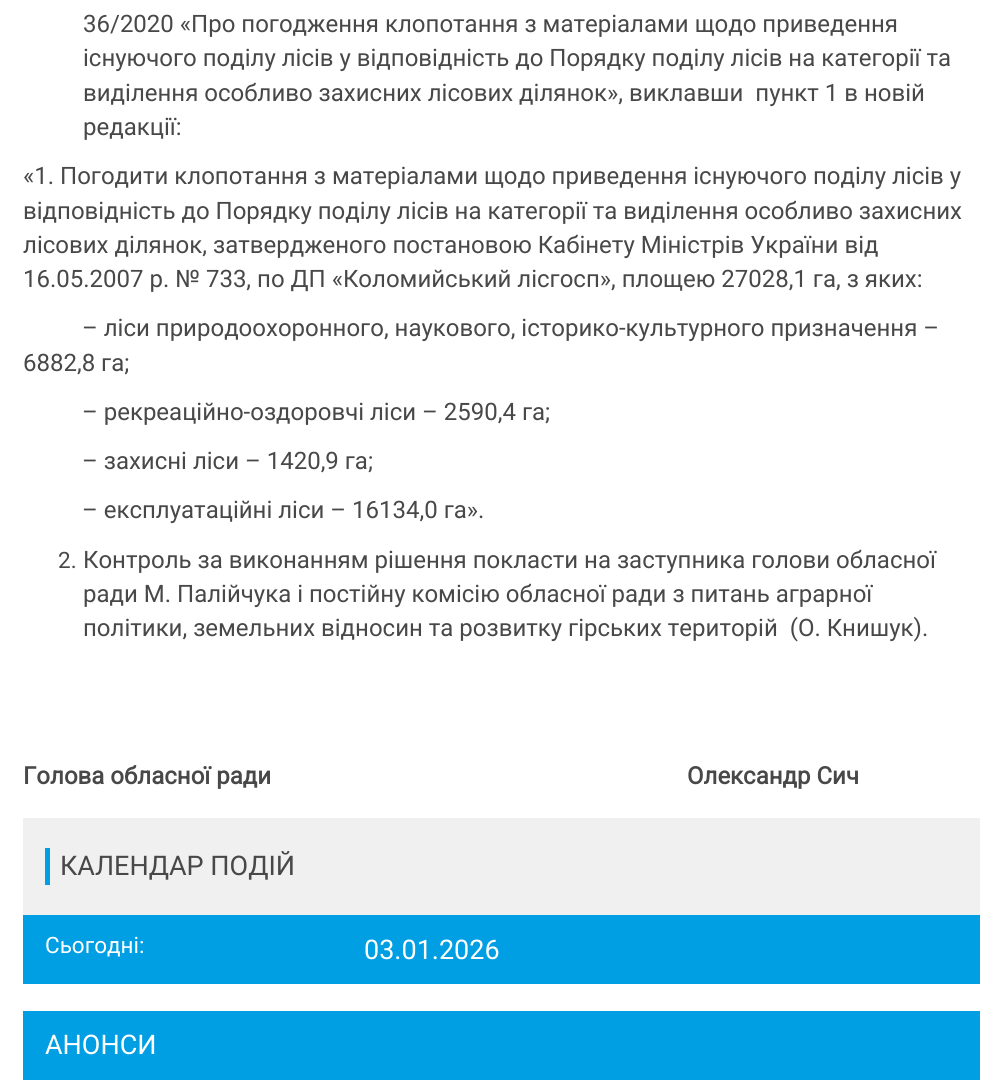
import math
import cairo

surface = cairo.ImageSurface(cairo.FORMAT_RGB24, 1002, 1088)
c = cairo.Context(surface)
options = cairo.FontOptions()
options.set_hint_metrics(cairo.HINT_METRICS_OFF)
options.set_hint_style(cairo.HINT_STYLE_NONE)
c.set_font_options(options)
c.set_miter_limit(4)
def C(code):
 c.set_source_rgb(*(v / 255 for v in bytes.fromhex(code[-6:])))
def F(family, size, italic, bold):
 c.select_font_face(family, cairo.FONT_SLANT_ITALIC if italic else cairo.FONT_SLANT_NORMAL, cairo.FONT_WEIGHT_BOLD if bold else cairo.FONT_WEIGHT_NORMAL)
 c.set_font_size(size)
def T(x, y, s):
 c.move_to(x, y)
 c.show_text(s)
def R(x, y, w, h):
 c.rectangle(x, y, w, h)
 c.fill()
C('ffffff')
c.paint()
F('Roboto',24,0,0)
C('494848')
T(83,32,'36/2020 «Про погодження клопотання з матеріалами щодо приведення')
T(83,66,'існуючого поділу лісів у відповідність до Порядку поділу лісів на категорії та')
T(83,101,'виділення особливо захисних лісових ділянок», виклавши  пункт 1 в новій')
T(83,135,'редакції:')
T(23,184,'«1. Погодити клопотання з матеріалами щодо приведення існуючого поділу лісів у')
T(23,219,'відповідність до Порядку поділу лісів на категорії та виділення особливо захисних')
T(23,253,'лісових ділянок, затвердженого постановою Кабінету Міністрів України від')
T(23,287,'16.05.2007 р. № 733, по ДП «Коломийський лісгосп», площею 27028,1 га, з яких:')
T(82,336,'– ліси природоохоронного, наукового, історико-культурного призначення –')
T(23,371,'6882,8 га;')
T(82,420,'– рекреаційно-оздоровчі ліси – 2590,4 га;')
T(82,469,'– захисні ліси – 1420,9 га;')
T(82,518,'– експлуатаційні ліси – 16134,0 га».')
F('Roboto',22.5,0,0)
T(58,568,'2.')
F('Roboto',24,0,0)
T(83,568,'Контроль за виконанням рішення покласти на заступника голови обласної')
T(83,602,'ради М. Палійчука і постійну комісію обласної ради з питань аграрної')
T(83,636,'політики, земельних відносин та розвитку гірських територій  (О. Книшук).')
F('Roboto',24,0,1)
T(23,784,'Голова обласної ради')
T(687,784,'Олександр Сич')
C('f0f0f0')
R(23,818,957,97)
C('009fe3')
R(45,848,5,37)
F('Roboto',27,0,0)
C('494848')
T(60,875,'КАЛЕНДАР ПОДІЙ')
C('009fe3')
R(23,915,957,69)
F('Roboto',22.5,0,0)
C('ffffff')
T(45,953,'Сьогодні:')
F('Roboto',27,0,0)
T(364,959,'03.01.2026')
C('009fe3')
R(23,1011,957,69)
C('ffffff')
T(45,1054,'АНОНСИ')
surface.write_to_png('o.png')
